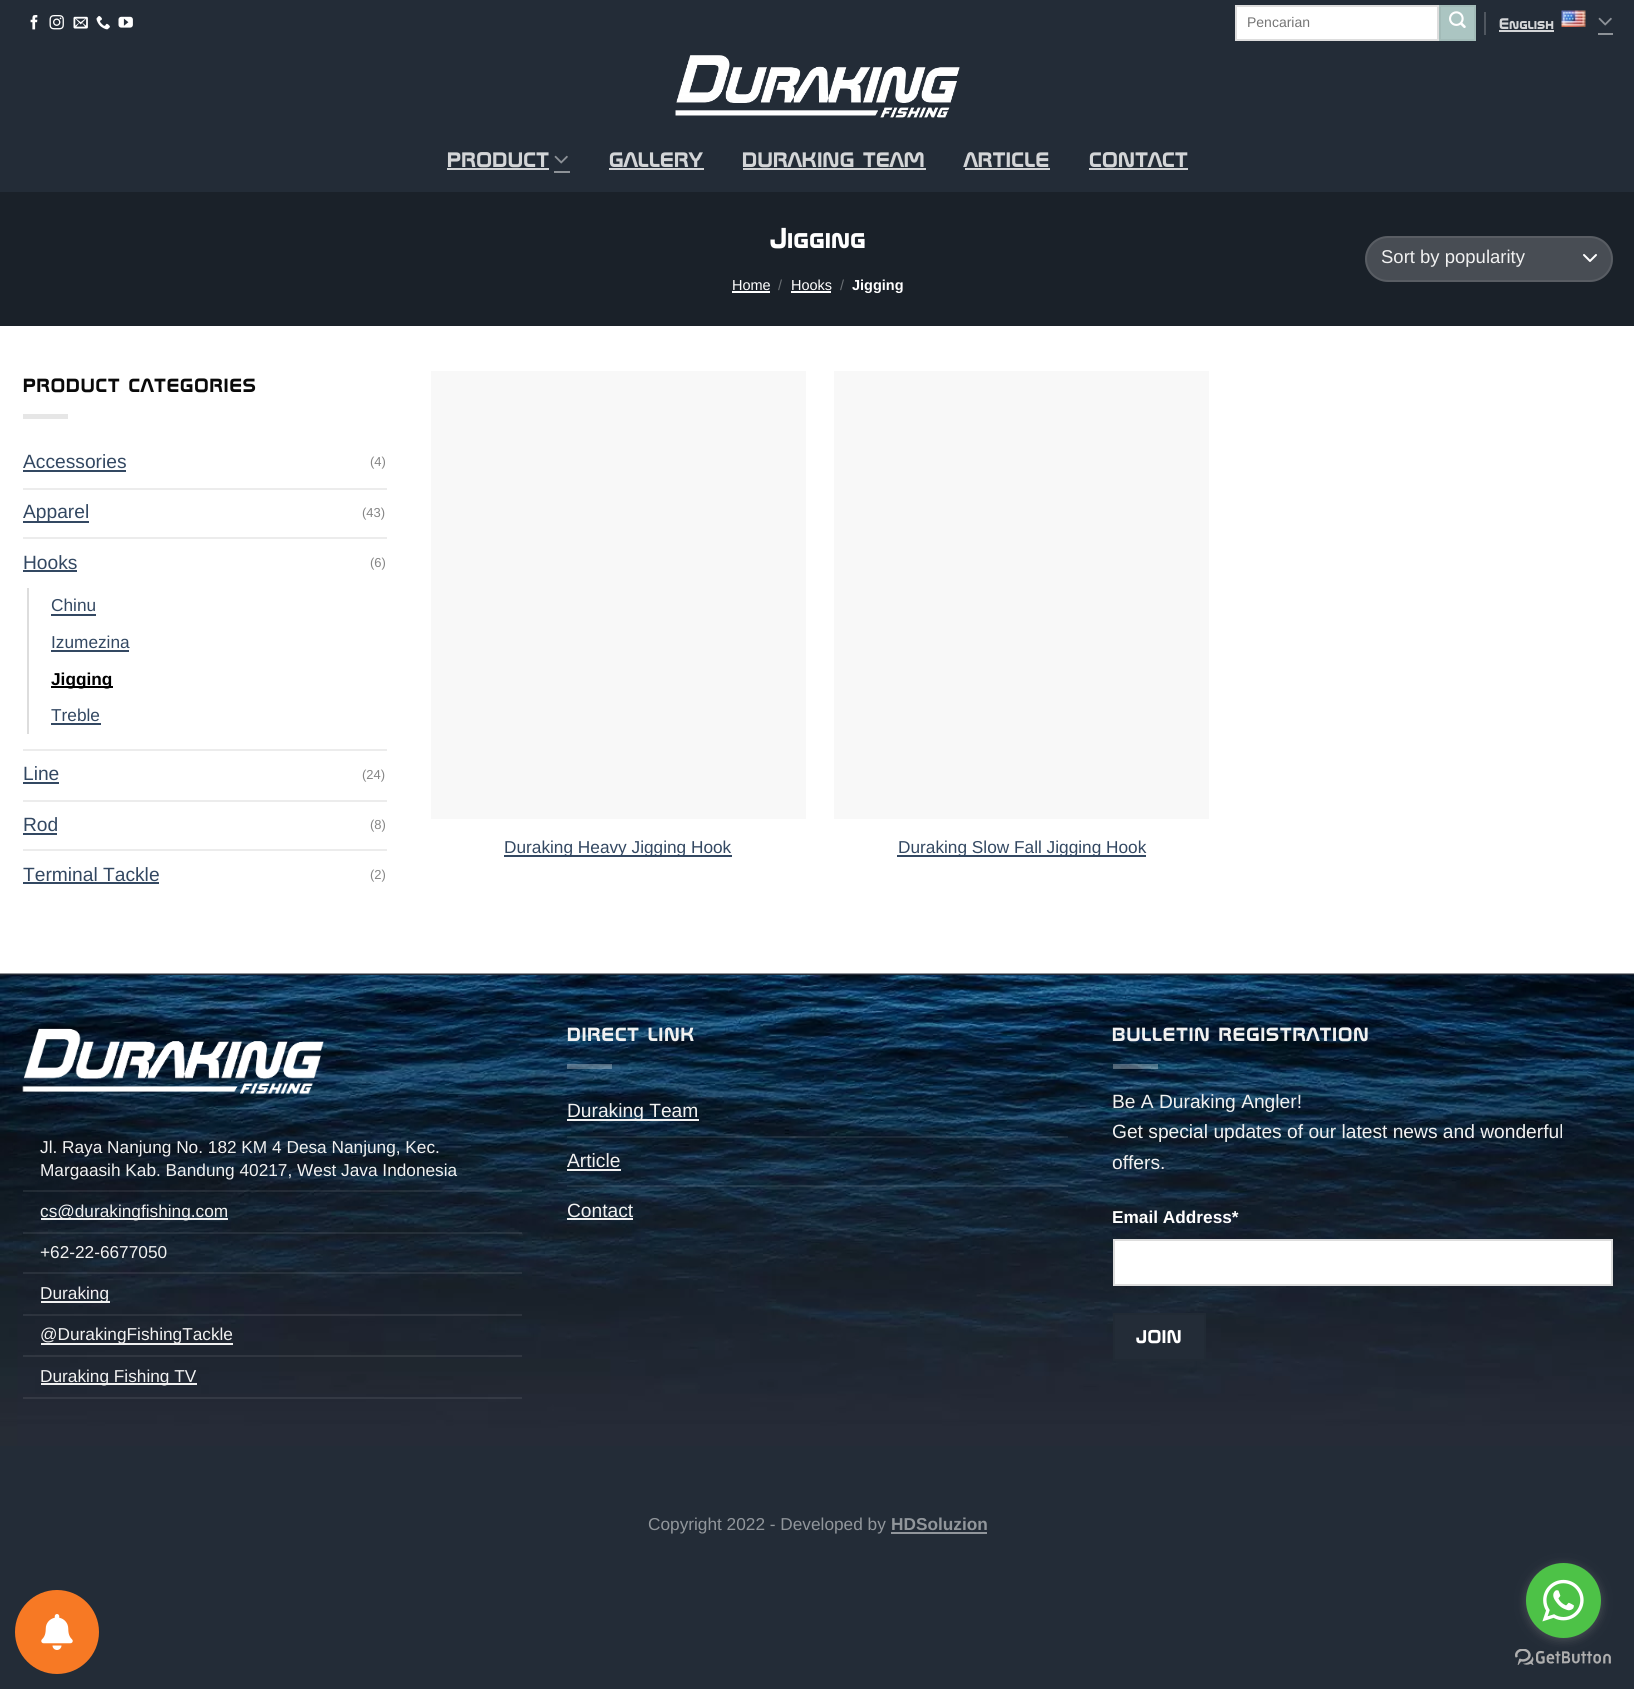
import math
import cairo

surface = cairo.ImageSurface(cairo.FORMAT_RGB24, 1634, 1689)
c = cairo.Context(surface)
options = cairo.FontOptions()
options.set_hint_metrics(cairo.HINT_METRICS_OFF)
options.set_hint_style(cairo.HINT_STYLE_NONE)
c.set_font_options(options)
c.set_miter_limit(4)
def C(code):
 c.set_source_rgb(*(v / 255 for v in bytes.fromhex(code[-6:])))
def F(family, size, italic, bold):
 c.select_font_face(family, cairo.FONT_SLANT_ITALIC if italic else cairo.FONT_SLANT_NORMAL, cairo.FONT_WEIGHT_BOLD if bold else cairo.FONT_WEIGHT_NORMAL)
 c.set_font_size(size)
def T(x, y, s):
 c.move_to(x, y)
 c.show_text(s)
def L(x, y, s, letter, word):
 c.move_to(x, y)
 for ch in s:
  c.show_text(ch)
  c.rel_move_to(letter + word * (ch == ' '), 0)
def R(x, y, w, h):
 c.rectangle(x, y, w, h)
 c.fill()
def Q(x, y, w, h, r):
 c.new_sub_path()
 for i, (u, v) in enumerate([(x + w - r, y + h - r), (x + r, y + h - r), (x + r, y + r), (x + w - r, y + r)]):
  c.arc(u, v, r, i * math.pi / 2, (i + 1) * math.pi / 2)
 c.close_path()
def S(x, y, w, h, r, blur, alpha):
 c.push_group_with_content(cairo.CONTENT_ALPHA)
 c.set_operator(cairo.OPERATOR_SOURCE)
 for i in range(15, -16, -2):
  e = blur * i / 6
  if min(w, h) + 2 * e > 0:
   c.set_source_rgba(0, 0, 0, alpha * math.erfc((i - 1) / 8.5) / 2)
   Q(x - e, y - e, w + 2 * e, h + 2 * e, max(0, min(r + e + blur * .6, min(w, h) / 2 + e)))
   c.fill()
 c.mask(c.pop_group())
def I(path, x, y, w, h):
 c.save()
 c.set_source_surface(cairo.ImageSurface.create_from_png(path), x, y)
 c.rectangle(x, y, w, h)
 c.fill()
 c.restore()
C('232c37')
c.paint()
C('ffffff')
R(0,326,1634,648)
I('1.png',30,15,8,15)
I('2.png',49,15,15,15)
I('3.png',73,16,15,13)
I('4.png',96,16,14,14)
I('5.png',118,16,15,12)
c.rectangle(1236,6,202,34)
c.fill_preserve()
C('dddddd')
c.stroke()
F('Liberation Sans',14,0,0)
C('757575')
T(1247,27,'Pencarian')
C('abc5c2')
c.rectangle(1440,6,35,34)
c.fill_preserve()
C('a2bbb8')
c.stroke()
I('6.png',1449,11,17,17)
C('4f565f')
R(1484,12,2,23)
F('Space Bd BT',15.5,0,1)
C('d3d5d7')
T(1499,29,'English')
R(1499,30,55,2)
I('7.png',1561,10,25,17)
I('8.png',1598,17,14,9)
C('8d9297')
R(1598,33,15,2)
I('9.png',675,55,285,63)
F('Space Bd BT',21.1,0,1)
C('d3d5d7')
L(447,167,'PRODUCT',.4,0)
R(447,168,102,2)
I('8.png',554,155,14,9)
C('8d9297')
R(554,171,16,2)
C('d3d5d7')
L(609,167,'GALLERY',.4,0)
R(609,168,95,2)
L(742,167,'DURAKING TEAM',.4,0)
R(743,168,183,2)
L(964,167,'ARTICLE',.4,0)
R(965,168,85,2)
L(1089,167,'CONTACT',.4,0)
R(1089,168,99,2)
C('1a2129')
R(0,192,1634,134)
F('Space Bd BT',29,0,1)
C('ffffff')
T(770,248,'Jigging')
F('Liberation Sans',14.5,0,0)
T(732,290,'Home')
R(732,291,38,2)
C('6a6f74')
T(778,290,'/')
C('ffffff')
T(791,290,'Hooks')
R(791,291,40,2)
C('6a6f74')
T(840,290,'/')
F('Liberation Sans',14.5,0,1)
C('ffffff')
T(852,290,'Jigging')
C('484d54')
Q(1365,236,248,46,23)
c.fill()
c.new_path()
c.move_to(1584,255)
c.line_to(1590,261)
c.line_to(1596,255)
C('ffffff')
c.set_line_cap(cairo.LINE_CAP_ROUND)
c.set_line_join(cairo.LINE_JOIN_ROUND)
c.stroke()
Q(1366,237,246,44,22)
c.set_source_rgba(1,1,1,0.09)
c.set_line_cap(cairo.LINE_CAP_BUTT)
c.set_line_join(cairo.LINE_JOIN_MITER)
c.stroke()
F('Liberation Sans',18.5,0,0)
C('f1f1f1')
T(1381,263,'Sort by popularity')
F('Space Bd BT',19.2,0,1)
C('0a0a0a')
L(23,392,'PRODUCT CATEGORIES',1,0)
C('e6e6e6')
R(23,414,45,5)
F('Liberation Sans',19.2,0,0)
C('334862')
T(23,468,'Accessories')
R(23,470,103,2)
F('Liberation Sans',13,0,0)
C('858585')
T(370,466,'(4)')
C('ececec')
R(23,488,364,2)
C('334862')
R(23,521,66,2)
F('Liberation Sans',19.2,0,0)
T(23,518,'Apparel')
F('Liberation Sans',13,0,0)
C('858585')
T(362,517,'(43)')
C('ececec')
R(23,537,364,2)
F('Liberation Sans',19.2,0,0)
C('334862')
T(23,569,'Hooks')
R(23,570,54,2)
F('Liberation Sans',13,0,0)
C('858585')
T(370,567,'(6)')
C('dddddd')
R(27,588,2,146)
F('Liberation Sans',17.25,0,0)
C('334862')
T(51,611,'Chinu')
R(51,614,45,2)
T(51,648,'Izumezina')
R(51,650,78,2)
C('000000')
R(51,686,62,2)
F('Liberation Sans',17.25,0,1)
T(51,685,'Jigging')
F('Liberation Sans',17.25,0,0)
C('334862')
T(51,721,'Treble')
R(51,723,50,2)
C('ececec')
R(23,749,364,2)
F('Liberation Sans',19.2,0,0)
C('334862')
T(23,780,'Line')
R(23,782,36,2)
F('Liberation Sans',13,0,0)
C('858585')
T(362,779,'(24)')
C('ececec')
R(23,800,364,2)
F('Liberation Sans',19.2,0,0)
C('334862')
T(23,831,'Rod')
R(23,833,34,2)
F('Liberation Sans',13,0,0)
C('858585')
T(370,829,'(8)')
C('ececec')
R(23,849,364,2)
F('Liberation Sans',19.2,0,0)
C('334862')
T(23,881,'Terminal Tackle')
R(23,882,136,2)
F('Liberation Sans',13,0,0)
C('858585')
T(370,879,'(2)')
C('f8f8f8')
R(431,371,375,448)
C('334862')
R(504,855,228,2)
F('Liberation Sans',17.25,0,0)
T(504,853,'Duraking Heavy Jigging Hook')
C('f8f8f8')
R(834,371,375,448)
C('334862')
R(897,855,249,2)
T(898,853,'Duraking Slow Fall Jigging Hook')
I('10.png',0,973,1634,473)
c.set_source_rgba(0,0,0,0.05)
R(0,974,1634,2)
I('11.png',22,1028,302,66)
c.set_source_rgba(1,1,1,0.08)
R(32,1190,490,2)
C('f1f1f1')
T(40,1153,'Jl. Raya Nanjung No. 182 KM 4 Desa Nanjung, Kec.')
T(40,1176,'Margaasih Kab. Bandung 40217, West Java Indonesia')
C('212b34')
R(23,1190,9,2)
c.set_source_rgba(1,1,1,0.08)
R(32,1232,490,2)
C('f1f1f1')
R(41,1218,187,2)
T(40,1217,'cs@durakingfishing.com')
c.set_source_rgba(1,1,1,0.08)
R(23,1232,9,2)
R(32,1272,490,2)
C('f1f1f1')
T(40,1258,'+62-22-6677050')
C('2a313c')
R(23,1272,9,2)
c.set_source_rgba(1,1,1,0.08)
R(32,1314,490,2)
C('f1f1f1')
R(41,1301,69,2)
T(40,1299,'Duraking')
C('2d343f')
R(23,1314,9,2)
c.set_source_rgba(1,1,1,0.08)
R(32,1355,490,2)
C('f1f1f1')
R(41,1343,192,2)
T(40,1340,'@DurakingFishingTackle')
C('303741')
R(23,1355,9,2)
c.set_source_rgba(1,1,1,0.08)
R(32,1397,490,2)
C('f1f1f1')
R(41,1383,156,2)
T(40,1382,'Duraking Fishing TV')
C('353944')
R(23,1397,9,2)
F('Space Bd BT',19.2,0,1)
C('f1f1f1')
L(567,1041,'DIRECT LINK',1,0)
c.set_source_rgba(1,1,1,0.3)
R(567,1064,45,5)
C('f1f1f1')
R(567,1119,132,2)
F('Liberation Sans',19.2,0,0)
T(567,1117,'Duraking Team')
c.set_source_rgba(1,1,1,0.08)
R(567,1136,501,2)
C('f1f1f1')
T(567,1167,'Article')
R(567,1169,54,2)
c.set_source_rgba(1,1,1,0.08)
R(567,1185,501,2)
C('f1f1f1')
T(567,1217,'Contact')
R(567,1218,66,2)
F('Space Bd BT',19.2,0,1)
L(1112,1041,'BULLETIN REGISTRATION',1,0)
c.set_source_rgba(1,1,1,0.3)
R(1113,1064,45,5)
F('Liberation Sans',19.2,0,0)
C('f1f1f1')
T(1112,1108,'Be A Duraking Angler!')
T(1112,1138,'Get special updates of our latest news and wonderful')
T(1112,1169,'offers.')
F('Liberation Sans',17.25,0,1)
C('ffffff')
T(1112,1223,'Email Address*')
c.rectangle(1114,1240,498,45)
c.fill_preserve()
C('dddddd')
c.stroke()
C('232c37')
c.rectangle(1114,1314,91,46)
c.fill_preserve()
C('212a34')
c.stroke()
F('Space Bd BT',18.5,0,1)
C('ffffff')
L(1136,1343,'JOIN',.5,0)
F('Liberation Sans',17.25,0,0)
C('91969b')
T(648,1530,'Copyright 2022 - Developed by')
F('Liberation Sans',17.25,0,1)
T(891,1530,'HDSoluzion')
R(891,1532,96,2)
C('f77924')
c.new_path()
c.arc(57,1632,42,0,2 * math.pi)
c.fill()
I('12.png',41,1614,32,36)
I('14.png',1515,1649,96,16)
C('888888')
S(1526,1565,75,75,37.5,5,.4)
C('4dc247')
c.arc(1563.5,1600.5,37.5,0,2 * math.pi)
c.fill()
I('13.png',1542,1579,42,43)
surface.write_to_png('o.png')
